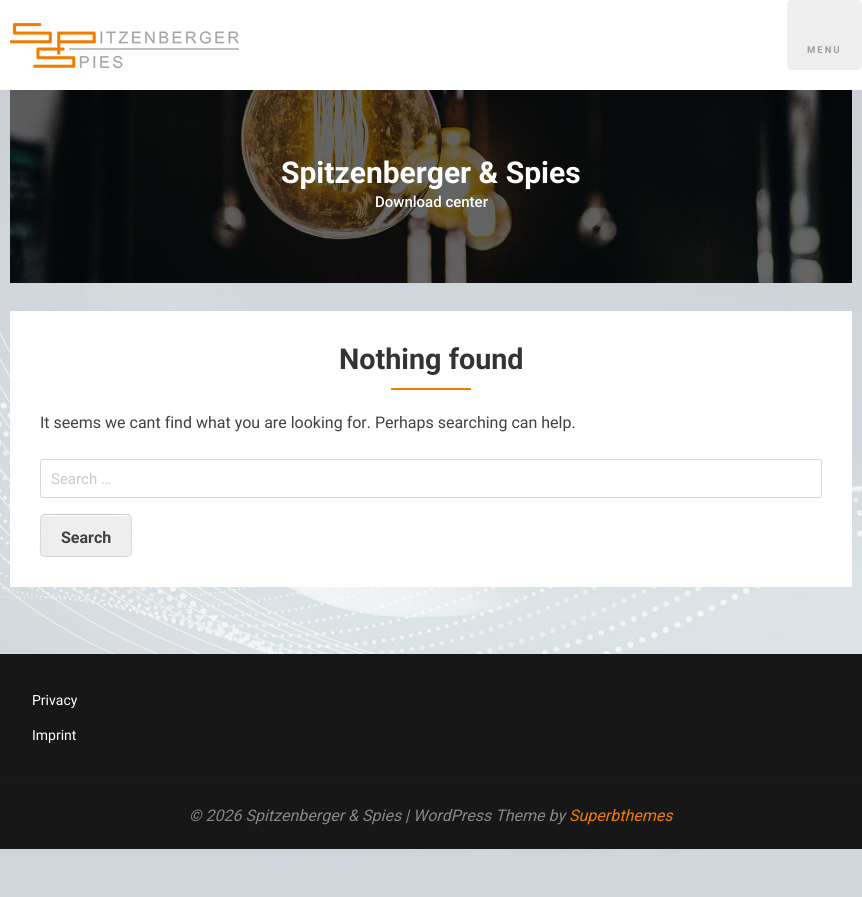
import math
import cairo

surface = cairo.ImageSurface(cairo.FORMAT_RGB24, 862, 897)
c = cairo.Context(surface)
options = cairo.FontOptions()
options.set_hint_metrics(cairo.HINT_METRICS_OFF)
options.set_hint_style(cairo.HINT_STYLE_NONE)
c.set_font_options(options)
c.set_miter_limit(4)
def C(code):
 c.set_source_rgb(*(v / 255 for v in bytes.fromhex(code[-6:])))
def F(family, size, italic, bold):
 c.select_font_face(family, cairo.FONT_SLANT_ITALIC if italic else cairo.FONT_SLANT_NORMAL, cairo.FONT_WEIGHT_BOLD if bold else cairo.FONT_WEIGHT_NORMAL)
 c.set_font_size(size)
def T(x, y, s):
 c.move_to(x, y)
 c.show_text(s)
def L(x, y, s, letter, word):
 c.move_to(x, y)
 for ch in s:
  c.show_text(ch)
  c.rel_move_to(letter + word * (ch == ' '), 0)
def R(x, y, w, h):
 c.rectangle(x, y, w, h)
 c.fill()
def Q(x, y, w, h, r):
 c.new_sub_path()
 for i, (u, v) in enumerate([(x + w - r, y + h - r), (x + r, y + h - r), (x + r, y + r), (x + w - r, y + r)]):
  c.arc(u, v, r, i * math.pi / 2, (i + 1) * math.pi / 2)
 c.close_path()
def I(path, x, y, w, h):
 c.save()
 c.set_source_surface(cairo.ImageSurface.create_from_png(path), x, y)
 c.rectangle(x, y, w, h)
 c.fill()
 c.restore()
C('ffffff')
c.paint()
I('1.png',0,90,862,807)
I('2.png',10,23,229,45)
C('eeeeee')
Q(787,0,75,70,5)
c.fill()
F('Roboto',9.5,0,1)
C('9e9e9e')
L(807,53,'MENU',2,0)
I('3.png',10,90,842,193)
F('Roboto',30,0,1)
C('ffffff')
T(281,183,'Spitzenberger & Spies')
F('Roboto Medium',15,0,0)
T(375,207,'Download center')
R(10,311,842,276)
F('Roboto',28.75,0,1)
C('333333')
T(339,369,'Nothing found')
C('ef7d00')
R(391,388,80,2)
F('Roboto',16,0,0)
C('404040')
T(40,428,'It seems we cant find what you are looking for. Perhaps searching can help.')
Q(40.5,459.5,781,38,2.5)
C('d8d8d8')
c.set_line_width(1)
c.stroke()
F('Roboto',15,0,0)
C('cacaca')
T(51,484,'Search …')
C('fbfcfc')
c.new_path()
c.move_to(45,513)
c.curve_to(42,513,40,516,40,519)
c.curve_to(40,516,42,514,45,514)
c.line_to(127,514)
c.curve_to(130,514,132,516,132,519)
c.curve_to(132,516,130,513,127,513)
c.close_path()
c.fill()
C('eeeeee')
Q(40,514,92,43,5)
c.fill()
C('ffffff')
c.new_path()
c.move_to(45,516)
c.line_to(127,516)
c.curve_to(129,516,131,518,131,520)
c.curve_to(131,512,118,515,113,515)
c.line_to(59,515)
c.curve_to(54,515,41,512,41,520)
c.curve_to(41,518,43,516,45,516)
c.close_path()
c.fill()
c.new_path()
c.move_to(42,516)
c.line_to(44.5,514.5)
c.line_to(127.5,514.5)
c.line_to(130,516)
c.set_source_rgba(0.102,0.208,0.278,0.2)
c.stroke()
c.new_path()
c.move_to(130,516)
c.curve_to(132.5,518,131.5,522,131.5,524.5)
c.line_to(131.5,535.5)
c.curve_to(131.5,558.5,135.5,556.5,113.5,556.5)
c.line_to(58.5,556.5)
c.curve_to(36.5,556.5,40.5,558.5,40.5,535.5)
c.line_to(40.5,524.5)
c.curve_to(40.5,522,39.5,518,42,516)
c.set_source_rgba(0.102,0.208,0.278,0.11)
c.stroke()
F('Roboto',16,0,1)
C('404040')
T(61,543,'Search')
C('171717')
R(0,654,862,195)
F('Roboto',14,0,0)
C('ffffff')
T(32,705,'Privacy')
T(32,740,'Imprint')
C('1b1b1b')
R(0,782,862,1)
F('Roboto',16,1,0)
C('868686')
T(189,821,'© 2026 Spitzenberger & Spies | WordPress Theme by')
C('ef7d00')
T(569,821,'Superbthemes')
surface.write_to_png('o.png')
